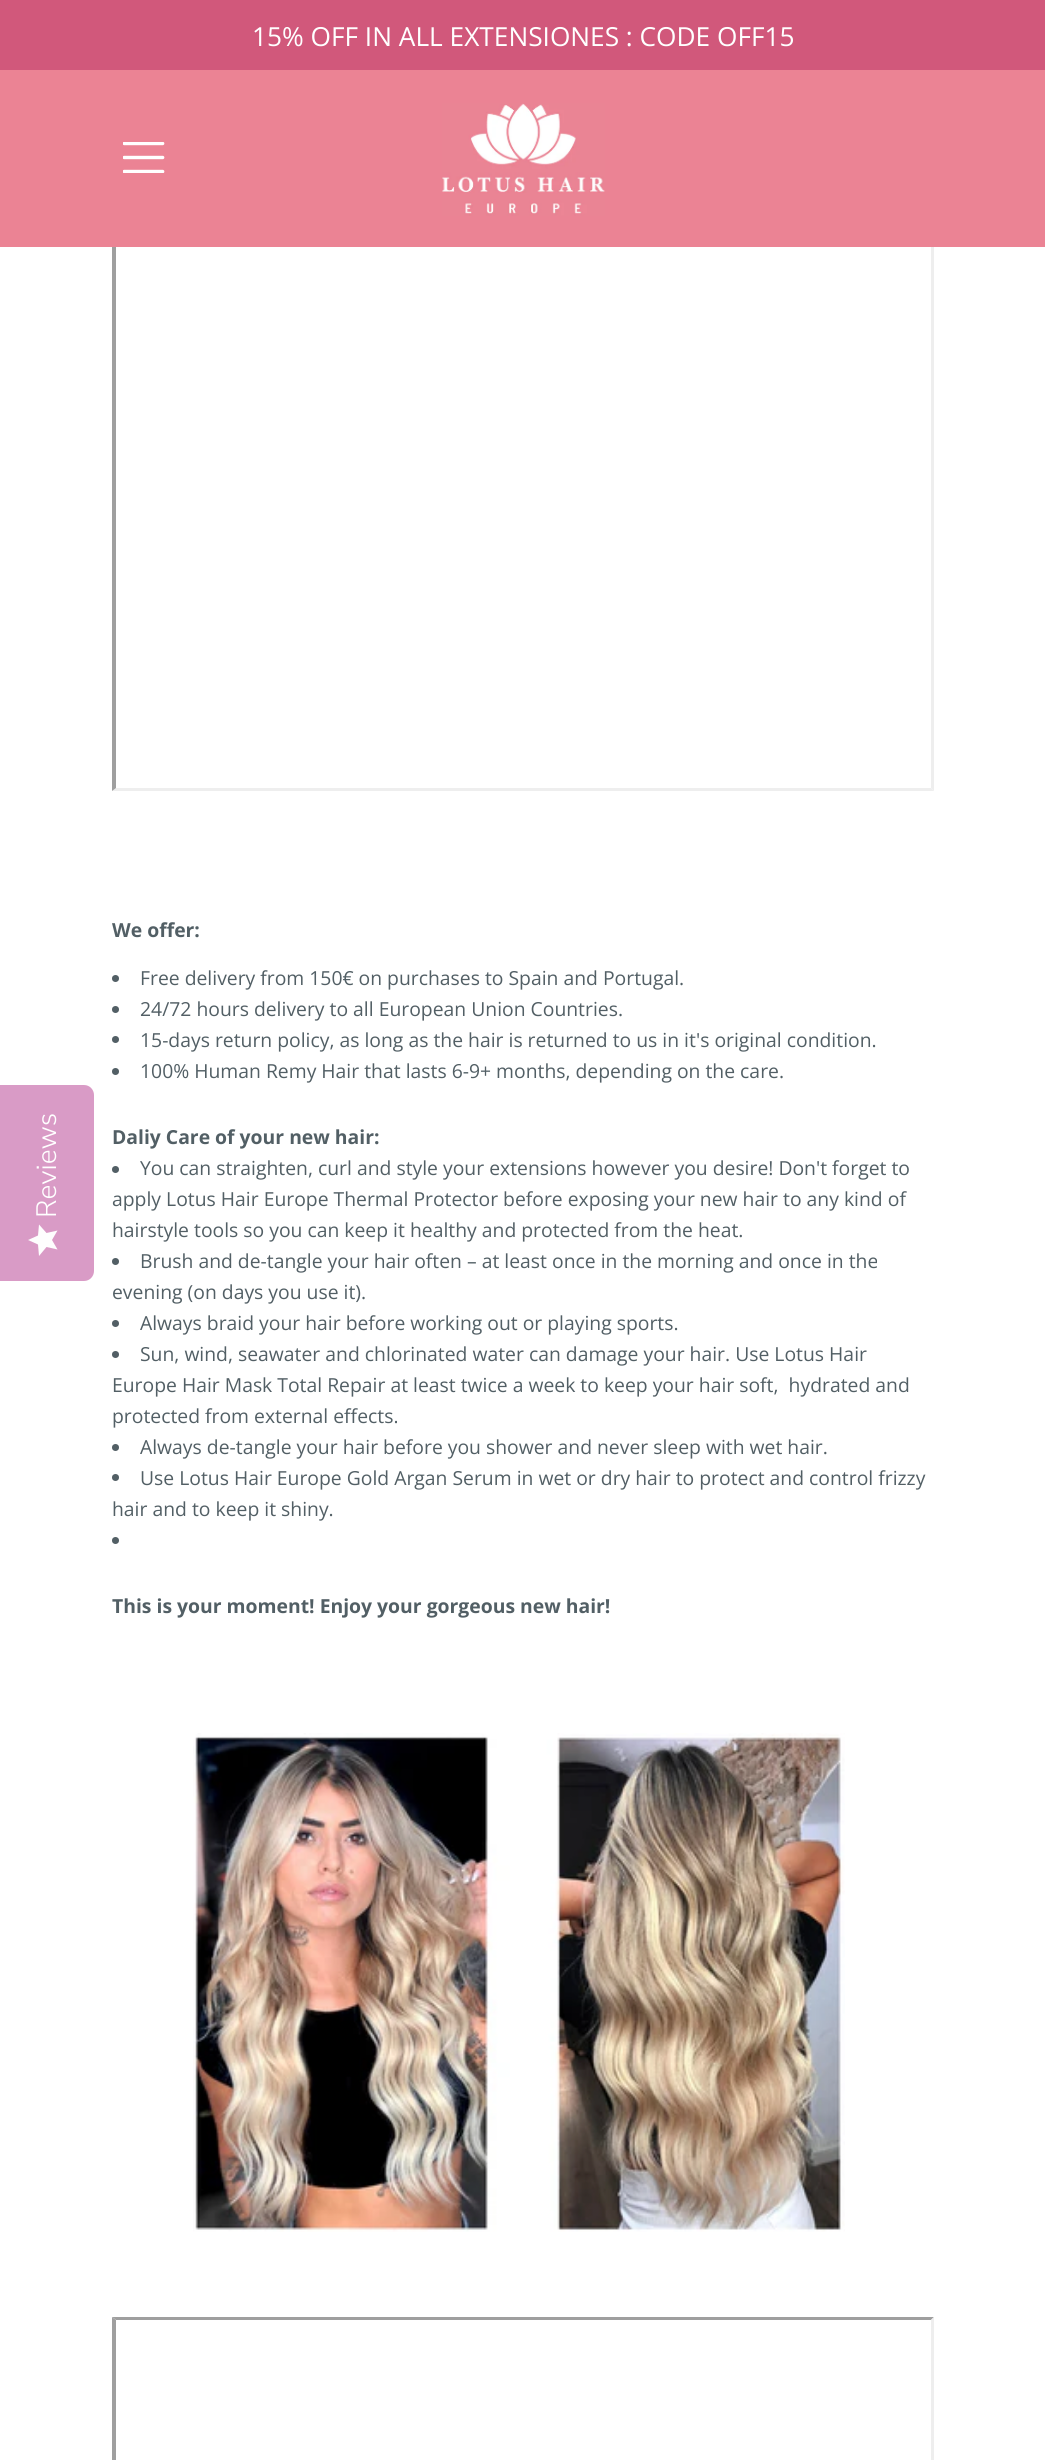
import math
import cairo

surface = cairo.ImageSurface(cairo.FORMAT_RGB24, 1045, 2460)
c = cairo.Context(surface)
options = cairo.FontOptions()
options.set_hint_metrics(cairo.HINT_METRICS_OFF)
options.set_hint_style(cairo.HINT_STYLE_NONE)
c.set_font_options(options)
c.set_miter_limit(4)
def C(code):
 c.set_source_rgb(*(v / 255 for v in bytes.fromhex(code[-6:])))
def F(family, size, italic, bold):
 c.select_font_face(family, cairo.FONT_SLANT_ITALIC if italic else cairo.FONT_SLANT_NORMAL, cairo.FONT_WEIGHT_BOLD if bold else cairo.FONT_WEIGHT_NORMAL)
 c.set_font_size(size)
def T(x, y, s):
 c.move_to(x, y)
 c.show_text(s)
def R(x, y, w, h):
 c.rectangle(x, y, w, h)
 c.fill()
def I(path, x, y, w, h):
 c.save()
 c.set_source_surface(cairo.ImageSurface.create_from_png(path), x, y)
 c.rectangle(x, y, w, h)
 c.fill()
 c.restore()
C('ffffff')
c.paint()
C('d99bc6')
c.new_path()
c.move_to(0,1281)
c.line_to(0,1085)
c.line_to(84,1085)
c.curve_to(90,1085,94,1090,94,1095)
c.line_to(94,1271)
c.curve_to(94,1276,90,1281,84,1281)
c.close_path()
c.fill()
F('Nunito Sans Light',28,0,0)
C('ffffff')
c.save()
c.translate(56,1218)
c.rotate(-90 * math.pi / 180)
T(0,0,'Reviews')
c.restore()
gradient = cairo.LinearGradient(28,1256,28,1224)
gradient.add_color_stop_rgba(1,0.996,0.996,0.996,1)
gradient.add_color_stop_rgba(1,0.941,0.941,0.941,1)
c.set_source(gradient)
c.new_path()
c.move_to(52,1240)
c.line_to(57.5,1230.5)
c.line_to(46.5,1233)
c.line_to(39,1224.5)
c.line_to(38,1235.5)
c.line_to(28,1240)
c.line_to(38,1244.5)
c.line_to(39,1256)
c.line_to(46.5,1247)
c.line_to(57.5,1249.5)
c.close_path()
c.fill()
C('d1587b')
R(0,0,1045,70)
F('Open Sans',26.25,0,0)
C('ffffff')
T(252,46,'15% OFF IN ALL EXTENSIONES : CODE OFF15')
C('eeeeee')
c.new_path()
c.move_to(934,240)
c.line_to(934,791)
c.line_to(931,788)
c.line_to(931,243)
c.close_path()
c.fill()
c.new_path()
c.move_to(934,791)
c.line_to(112,791)
c.line_to(116,788)
c.line_to(931,788)
c.close_path()
c.fill()
C('9f9f9f')
c.new_path()
c.move_to(112,791)
c.line_to(112,240)
c.line_to(116,243)
c.line_to(116,788)
c.close_path()
c.fill()
C('eb8394')
R(0,70,1045,177)
I('1.png',123,142,42,31)
I('2.png',442,103,163,113)
F('Open Sans',19.35,0,1)
C('525f65')
T(112,937,'We offer:')
c.new_path()
c.arc(115.5,978.5,3.5,0,2 * math.pi)
c.fill()
F('Open Sans',19.35,0,0)
T(140,985,'Free delivery from 150€ on purchases to Spain and Portugal.')
c.new_path()
c.arc(115.5,1009.5,3.5,0,2 * math.pi)
c.fill()
T(140,1016,'24/72 hours delivery to all European Union Countries.')
c.new_path()
c.arc(115.5,1039.5,3.5,0,2 * math.pi)
c.fill()
T(140,1047,'15-days return policy, as long as the hair is returned to us in it\'s original condition.')
c.new_path()
c.arc(115.5,1071.5,3.5,0,2 * math.pi)
c.fill()
T(140,1078,'100% Human Remy Hair that lasts 6-9+ months, depending on the care.')
F('Open Sans',19.35,0,1)
T(112,1144,'Daliy Care of your new hair:')
c.new_path()
c.arc(115.5,1169.5,3.5,0,2 * math.pi)
c.fill()
F('Open Sans',19.35,0,0)
T(140,1175,'You can straighten, curl and style your extensions however you desire! Don\'t forget to')
T(112,1206,'apply Lotus Hair Europe Thermal Protector before exposing your new hair to any kind of')
T(112,1237,'hairstyle tools so you can keep it healthy and protected from the heat.')
c.new_path()
c.arc(115.5,1261.5,3.5,0,2 * math.pi)
c.fill()
T(140,1268,'Brush and de-tangle your hair often – at least once in the morning and once in the')
T(112,1299,'evening (on days you use it).')
c.new_path()
c.arc(115.5,1323.5,3.5,0,2 * math.pi)
c.fill()
T(140,1330,'Always braid your hair before working out or playing sports.')
c.new_path()
c.arc(115.5,1354.5,3.5,0,2 * math.pi)
c.fill()
T(140,1361,'Sun, wind, seawater and chlorinated water can damage your hair. Use Lotus Hair')
T(112,1392,'Europe Hair Mask Total Repair at least twice a week to keep your hair soft,  hydrated and')
T(112,1423,'protected from external effects.')
c.new_path()
c.arc(115.5,1447.5,3.5,0,2 * math.pi)
c.fill()
T(140,1454,'Always de-tangle your hair before you shower and never sleep with wet hair.')
c.new_path()
c.arc(115.5,1477.5,3.5,0,2 * math.pi)
c.fill()
T(140,1485,'Use Lotus Hair Europe Gold Argan Serum in wet or dry hair to protect and control frizzy')
T(112,1516,'hair and to keep it shiny.')
c.new_path()
c.arc(115.5,1540.5,3.5,0,2 * math.pi)
c.fill()
F('Open Sans',19.35,0,1)
T(112,1613,'This is your moment! Enjoy your gorgeous new hair!')
I('3.png',193,1733,652,499)
C('9f9f9f')
c.new_path()
c.move_to(112,2317)
c.line_to(934,2317)
c.line_to(931,2320)
c.line_to(116,2320)
c.close_path()
c.fill()
c.new_path()
c.move_to(112,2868)
c.line_to(112,2317)
c.line_to(116,2320)
c.line_to(116,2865)
c.close_path()
c.fill()
C('eeeeee')
c.new_path()
c.move_to(934,2317)
c.line_to(934,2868)
c.line_to(931,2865)
c.line_to(931,2320)
c.close_path()
c.fill()
surface.write_to_png('o.png')
